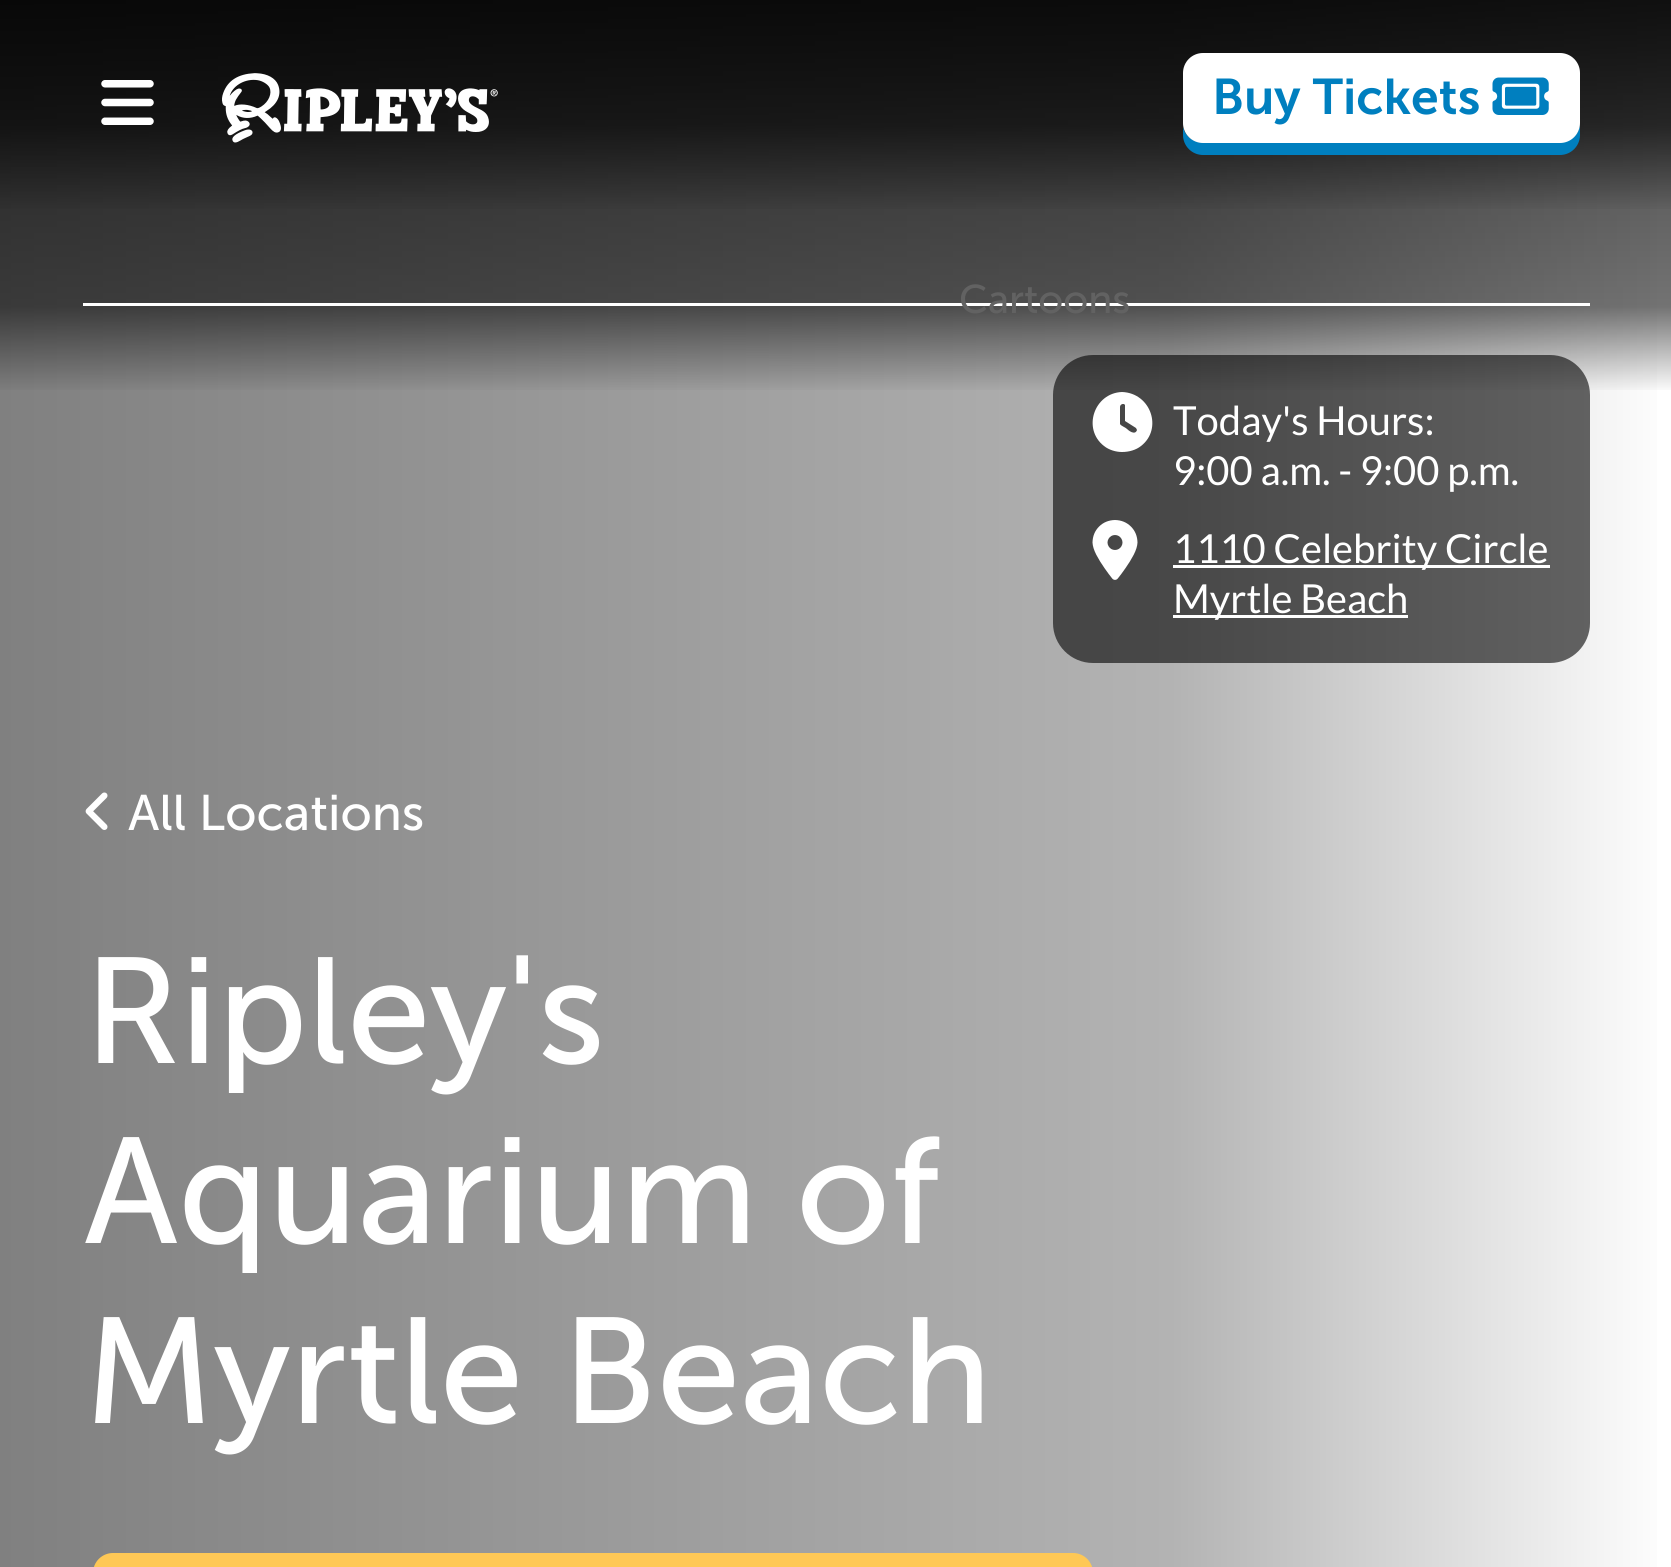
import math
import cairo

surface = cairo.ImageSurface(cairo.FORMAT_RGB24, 1671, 1567)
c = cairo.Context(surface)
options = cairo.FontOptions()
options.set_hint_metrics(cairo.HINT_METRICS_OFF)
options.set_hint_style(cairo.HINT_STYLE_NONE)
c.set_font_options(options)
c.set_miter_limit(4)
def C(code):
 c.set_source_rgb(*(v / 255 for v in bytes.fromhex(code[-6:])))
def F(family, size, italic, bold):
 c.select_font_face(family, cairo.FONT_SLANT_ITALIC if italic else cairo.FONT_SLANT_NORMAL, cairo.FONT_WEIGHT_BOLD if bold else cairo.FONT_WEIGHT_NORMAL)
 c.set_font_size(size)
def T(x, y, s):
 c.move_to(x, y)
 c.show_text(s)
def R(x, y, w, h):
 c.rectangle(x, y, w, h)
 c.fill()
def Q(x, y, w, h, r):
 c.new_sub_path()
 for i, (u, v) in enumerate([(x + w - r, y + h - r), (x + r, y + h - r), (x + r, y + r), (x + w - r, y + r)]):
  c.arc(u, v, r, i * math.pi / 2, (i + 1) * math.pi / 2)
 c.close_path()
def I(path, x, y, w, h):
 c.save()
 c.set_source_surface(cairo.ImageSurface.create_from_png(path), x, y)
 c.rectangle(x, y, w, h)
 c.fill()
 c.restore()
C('ffffff')
c.paint()
gradient = cairo.LinearGradient(0,1130,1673,1130)
gradient.add_color_stop_rgba(0,0.502,0.502,0.502,1)
gradient.add_color_stop_rgba(.7,0.702,0.702,0.702,1)
gradient.add_color_stop_rgba(1,1,1,1,1)
c.set_source(gradient)
R(0,0,1657,1567)
c.set_source_rgba(0,0,0,0.6)
Q(1053,355,537,308,40)
c.fill()
gradient = cairo.LinearGradient(836,0,836,393)
gradient.add_color_stop_rgba(0,0,0,0,.75)
gradient.add_color_stop_rgba(.78,0,0,0,.55)
gradient.add_color_stop_rgba(1,0,0,0,0)
c.set_source(gradient)
R(0,0,1671,390)
C('ffffff')
R(83,303,1507,3)
gradient = cairo.LinearGradient(836,0,836,213)
gradient.add_color_stop_rgba(0,0,0,0,.75)
gradient.add_color_stop_rgba(.59,0,0,0,.55)
gradient.add_color_stop_rgba(1,0,0,0,0)
c.set_source(gradient)
R(0,0,1671,209)
I('1.png',101,80,53,45)
I('2.png',222,73,276,70)
C('007fbf')
c.new_path()
c.move_to(1183,127)
c.line_to(1183,135)
c.curve_to(1183,146,1192,155,1203,155)
c.line_to(1560,155)
c.curve_to(1571,155,1580,146,1580,135)
c.line_to(1580,122)
c.curve_to(1580,134,1571,142,1560,142)
c.line_to(1202,142)
c.curve_to(1193,142,1185,136,1183,127)
c.close_path()
c.fill()
C('ffffff')
Q(1183,53,397,90,20)
c.fill()
F('Museo Sans SemiBold',50,0,0)
C('007fbf')
T(1212,114,'Buy Tickets')
I('3.png',1492,77,57,38)
F('Museo Sans',40,0,0)
C('626262')
T(959,313,'Cartoons')
C('ffffff')
c.new_path()
c.move_to(1122,392)
c.curve_to(1151,393,1163,429,1141,446)
c.curve_to(1136,450,1129,452,1122,452)
c.curve_to(1116,452,1109,450,1104,446)
c.curve_to(1082,429,1094,393,1122,392)
c.close_path()
c.move_to(1120,407)
c.line_to(1120,424)
c.curve_to(1121,426,1125,427,1127,429)
c.curve_to(1128,430,1135,436,1137,430)
c.line_to(1136,428)
c.line_to(1125,421)
c.line_to(1125,405)
c.curve_to(1124,403,1120,404,1120,407)
c.close_path()
c.fill()
F('Lato',40,0,0)
T(1173,435,'Today\'s Hours:')
T(1173,485,'9:00 a.m. - 9:00 p.m.')
I('4.png',1092,520,46,60)
R(1173,565,377,3)
T(1173,563,'1110 Celebrity Circle')
R(1173,615,235,3)
T(1173,613,'Myrtle Beach')
I('5.png',85,792,23,38)
F('Museo Sans',50,0,0)
T(128,830,'All Locations')
F('Museo Sans',150,0,0)
T(84,1063,'Ripley\'s')
T(84,1243,'Aquarium of')
T(84,1423,'Myrtle Beach')
C('fec856')
Q(93,1553,1000,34,20)
c.fill()
surface.write_to_png('o.png')
